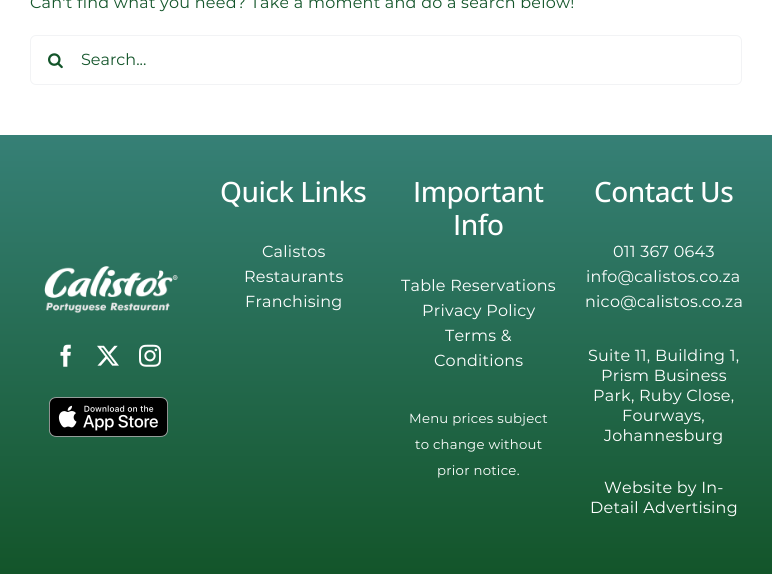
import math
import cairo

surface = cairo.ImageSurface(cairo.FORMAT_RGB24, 772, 574)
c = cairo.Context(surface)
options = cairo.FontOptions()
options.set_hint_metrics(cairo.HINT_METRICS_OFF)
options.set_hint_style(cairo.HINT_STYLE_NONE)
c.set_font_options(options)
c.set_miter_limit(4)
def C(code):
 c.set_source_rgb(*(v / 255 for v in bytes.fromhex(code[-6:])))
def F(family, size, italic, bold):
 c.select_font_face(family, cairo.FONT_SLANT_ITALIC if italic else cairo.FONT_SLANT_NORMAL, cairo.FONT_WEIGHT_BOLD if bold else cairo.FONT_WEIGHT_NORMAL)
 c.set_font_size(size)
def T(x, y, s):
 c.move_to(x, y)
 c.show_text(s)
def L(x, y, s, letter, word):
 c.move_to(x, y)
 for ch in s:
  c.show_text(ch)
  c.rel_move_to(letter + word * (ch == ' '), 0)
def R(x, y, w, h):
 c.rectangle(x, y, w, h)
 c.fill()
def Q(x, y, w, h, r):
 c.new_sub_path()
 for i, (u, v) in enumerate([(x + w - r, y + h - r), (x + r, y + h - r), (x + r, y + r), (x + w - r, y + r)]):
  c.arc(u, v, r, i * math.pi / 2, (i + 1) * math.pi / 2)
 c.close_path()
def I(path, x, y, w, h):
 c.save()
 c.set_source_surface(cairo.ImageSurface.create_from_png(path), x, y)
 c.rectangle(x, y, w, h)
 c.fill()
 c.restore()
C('ffffff')
c.paint()
F('Montserrat',16,0,0)
C('13552a')
L(30,8,'Can\'t find what you need? Take a moment and do a search below!',.25,0)
Q(30.5,35.5,711,49,5.5)
C('f2f3f5')
c.set_line_width(1)
c.stroke()
I('1.png',48,53,15,16)
C('13552a')
T(81,65,'Search...')
gradient = cairo.LinearGradient(386,135,386,574)
gradient.add_color_stop_rgba(0,0.212,0.502,0.463,1)
gradient.add_color_stop_rgba(1,0.075,0.333,0.165,1)
c.set_source(gradient)
R(0,135,772,439)
I('2.png',44,266,134,47)
I('3.png',60,344,11,23)
I('4.png',97,345,22,21)
I('5.png',139,344,22,23)
I('6.png',49,397,119,40)
F('Open Sans Medium',28,0,0)
C('ffffff')
L(220,202,'Quick Links',-.5,0)
F('Montserrat',16,0,0)
L(262,257,'Calistos',.25,0)
L(244,282,'Restaurants',.25,0)
L(245,307,'Franchising',.25,0)
F('Open Sans Medium',28,0,0)
L(413,202,'Important',-.5,0)
L(453,235,'Info',-.5,0)
F('Montserrat',16,0,0)
L(401,291,'Table Reservations',.25,0)
L(422,316,'Privacy Policy',.25,0)
L(445,341,'Terms &',.25,0)
L(434,366,'Conditions',.25,0)
F('Montserrat',13.25,0,0)
L(409,423,'Menu prices subject',.25,0)
L(415,449,'to change without',.25,0)
L(437,475,'prior notice.',.25,0)
F('Open Sans Medium',28,0,0)
L(594,202,'Contact Us',-.5,0)
F('Montserrat',16,0,0)
L(613,257,'011 367 0643',.25,0)
L(586,282,'info@calistos.co.za',.25,0)
L(585,307,'nico@calistos.co.za',.25,0)
L(588,361,'Suite 11, Building 1,',.25,0)
L(601,381,'Prism Business',.25,0)
L(593,401,'Park, Ruby Close,',.25,0)
L(622,421,'Fourways,',.25,0)
L(604,441,'Johannesburg',.25,0)
L(604,493,'Website by In-',.25,0)
L(590,513,'Detail Advertising',.25,0)
surface.write_to_png('o.png')
